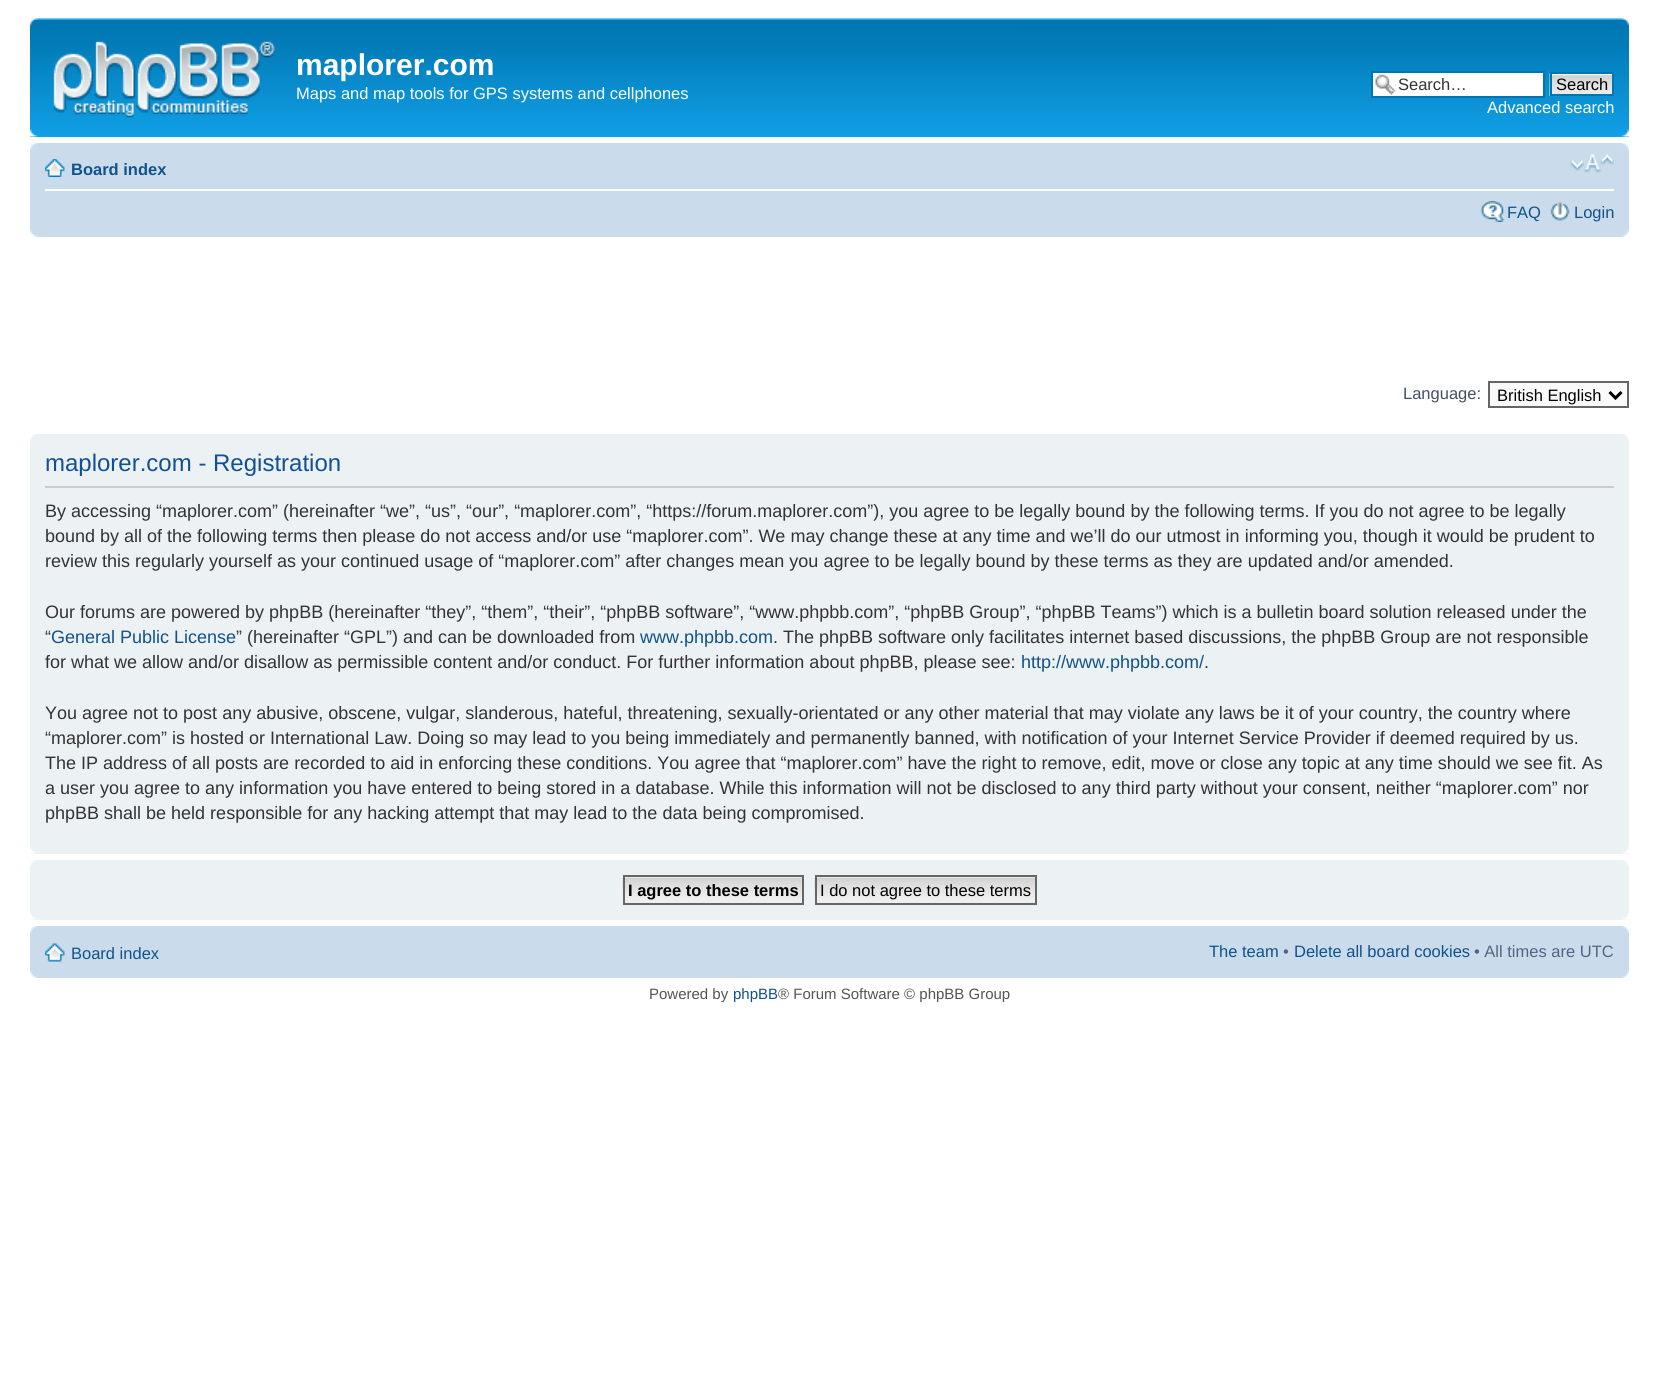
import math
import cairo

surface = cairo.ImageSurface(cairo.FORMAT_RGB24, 1658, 1381)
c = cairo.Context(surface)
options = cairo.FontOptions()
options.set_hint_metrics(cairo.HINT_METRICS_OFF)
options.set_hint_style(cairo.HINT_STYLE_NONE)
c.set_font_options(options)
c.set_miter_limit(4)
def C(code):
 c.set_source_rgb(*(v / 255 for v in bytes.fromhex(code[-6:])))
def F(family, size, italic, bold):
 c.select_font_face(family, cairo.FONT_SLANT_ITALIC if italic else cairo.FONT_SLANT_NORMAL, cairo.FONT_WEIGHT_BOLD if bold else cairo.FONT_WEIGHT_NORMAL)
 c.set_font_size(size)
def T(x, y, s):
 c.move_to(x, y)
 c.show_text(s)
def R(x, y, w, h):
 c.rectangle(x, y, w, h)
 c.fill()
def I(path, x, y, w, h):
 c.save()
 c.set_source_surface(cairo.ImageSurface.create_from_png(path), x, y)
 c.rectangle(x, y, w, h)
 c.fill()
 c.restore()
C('ffffff')
c.paint()
C('12a3eb')
R(30,136,1599,1)
I('1.png',30,18,1599,118)
I('2.png',30,18,8,8)
I('3.png',1621,18,8,8)
I('4.png',53,41,222,77)
F('Liberation Sans',30,0,1)
C('ffffff')
T(296,75,'maplorer.com')
F('Liberation Sans',16.5,0,0)
T(296,99,'Maps and map tools for GPS systems and cellphones')
R(1373,73,170,23)
I('5.png',1375,74,21,21)
c.rectangle(1372,72,172,25)
C('0075b0')
c.stroke()
C('333333')
T(1398,90,'Search…')
I('6.png',1549,73,63,23)
c.rectangle(1551,73,62,22)
C('0075b0')
c.stroke()
C('000000')
T(1556,90,'Search')
C('ffffff')
T(1487,113,'Advanced search')
I('7.png',30,129,8,8)
I('8.png',1621,129,8,8)
C('cadceb')
R(30,143,1599,94)
I('9.png',30,143,8,7)
I('10.png',1621,143,8,7)
C('ffffff')
R(45,189,1569,2)
I('11.png',45,159,20,18)
F('Liberation Sans',16.5,0,1)
C('105289')
T(71,175,'Board index')
I('12.png',1570,154,44,19)
I('13.png',1480,201,25,21)
F('Liberation Sans',16.5,0,0)
T(1507,218,'FAQ')
I('14.png',1550,202,20,19)
T(1574,218,'Login')
I('15.png',30,229,8,8)
I('16.png',1621,229,8,8)
C('425067')
T(1403,399,'Language:')
C('fafafa')
c.rectangle(1489,382,139,25)
c.fill_preserve()
C('666666')
c.stroke()
c.new_path()
c.move_to(1609.5,392)
c.line_to(1615.5,398)
c.line_to(1621.5,392)
C('000000')
c.set_line_width(3)
c.stroke()
T(1497,401,'British English')
C('ecf1f3')
R(30,434,1599,420)
I('17.png',30,434,7,7)
I('18.png',1622,434,7,7)
C('cccccc')
R(45,486,1569,2)
F('Liberation Sans',24,0,0)
C('115098')
T(45,471,'maplorer.com - Registration')
F('Liberation Sans',18,0,0)
C('333333')
T(45,517,'By accessing “maplorer.com” (hereinafter “we”, “us”, “our”, “maplorer.com”, “https://forum.maplorer.com”), you agree to be legally bound by the following terms. If you do not agree to be legally')
T(45,542,'bound by all of the following terms then please do not access and/or use “maplorer.com”. We may change these at any time and we’ll do our utmost in informing you, though it would be prudent to')
T(45,567,'review this regularly yourself as your continued usage of “maplorer.com” after changes mean you agree to be legally bound by these terms as they are updated and/or amended.')
T(45,618,'Our forums are powered by phpBB (hereinafter “they”, “them”, “their”, “phpBB software”, “www.phpbb.com”, “phpBB Group”, “phpBB Teams”) which is a bulletin board solution released under the')
T(45,643,'“')
C('105289')
T(51,643,'General Public License')
C('333333')
T(236,643,'” (hereinafter “GPL”) and can be downloaded from')
C('105289')
T(640,643,'www.phpbb.com')
C('333333')
T(773,643,'. The phpBB software only facilitates internet based discussions, the phpBB Group are not responsible')
T(45,668,'for what we allow and/or disallow as permissible content and/or conduct. For further information about phpBB, please see:')
C('105289')
T(1021,668,'http://www.phpbb.com/')
C('333333')
T(1204,668,'.')
T(45,719,'You agree not to post any abusive, obscene, vulgar, slanderous, hateful, threatening, sexually-orientated or any other material that may violate any laws be it of your country, the country where')
T(45,744,'“maplorer.com” is hosted or International Law. Doing so may lead to you being immediately and permanently banned, with notification of your Internet Service Provider if deemed required by us.')
T(45,769,'The IP address of all posts are recorded to aid in enforcing these conditions. You agree that “maplorer.com” have the right to remove, edit, move or close any topic at any time should we see fit. As')
T(45,794,'a user you agree to any information you have entered to being stored in a database. While this information will not be disclosed to any third party without your consent, neither “maplorer.com” nor')
T(45,819,'phpBB shall be held responsible for any hacking attempt that may lead to the data being compromised.')
I('19.png',30,846,7,8)
I('20.png',1622,846,7,8)
C('ecf1f3')
R(30,860,1599,60)
I('17.png',30,860,7,7)
I('18.png',1622,860,7,7)
I('21.png',622,876,180,29)
c.rectangle(624,876,179,28)
C('666666')
c.set_line_width(2)
c.stroke()
F('Liberation Sans',16.5,0,1)
C('000000')
T(628,896,'I agree to these terms')
I('22.png',814,876,221,29)
c.rectangle(816,876,220,28)
C('666666')
c.stroke()
F('Liberation Sans',16.5,0,0)
C('000000')
T(820,896,'I do not agree to these terms')
I('19.png',30,912,7,8)
I('20.png',1622,912,7,8)
C('cadceb')
R(30,926,1599,52)
I('9.png',30,926,8,7)
I('10.png',1621,926,8,7)
I('23.png',45,943,20,19)
C('105289')
T(71,959,'Board index')
T(1209,957,'The team')
C('536482')
T(1283,957,'•')
C('105289')
T(1294,957,'Delete all board cookies')
C('536482')
T(1474,957,'• All times are UTC')
I('15.png',30,970,8,8)
I('16.png',1621,970,8,8)
F('Liberation Sans',15,0,0)
C('555555')
T(649,999,'Powered by')
C('105289')
T(733,999,'phpBB')
C('555555')
T(778,999,'® Forum Software © phpBB Group')
surface.write_to_png('o.png')
